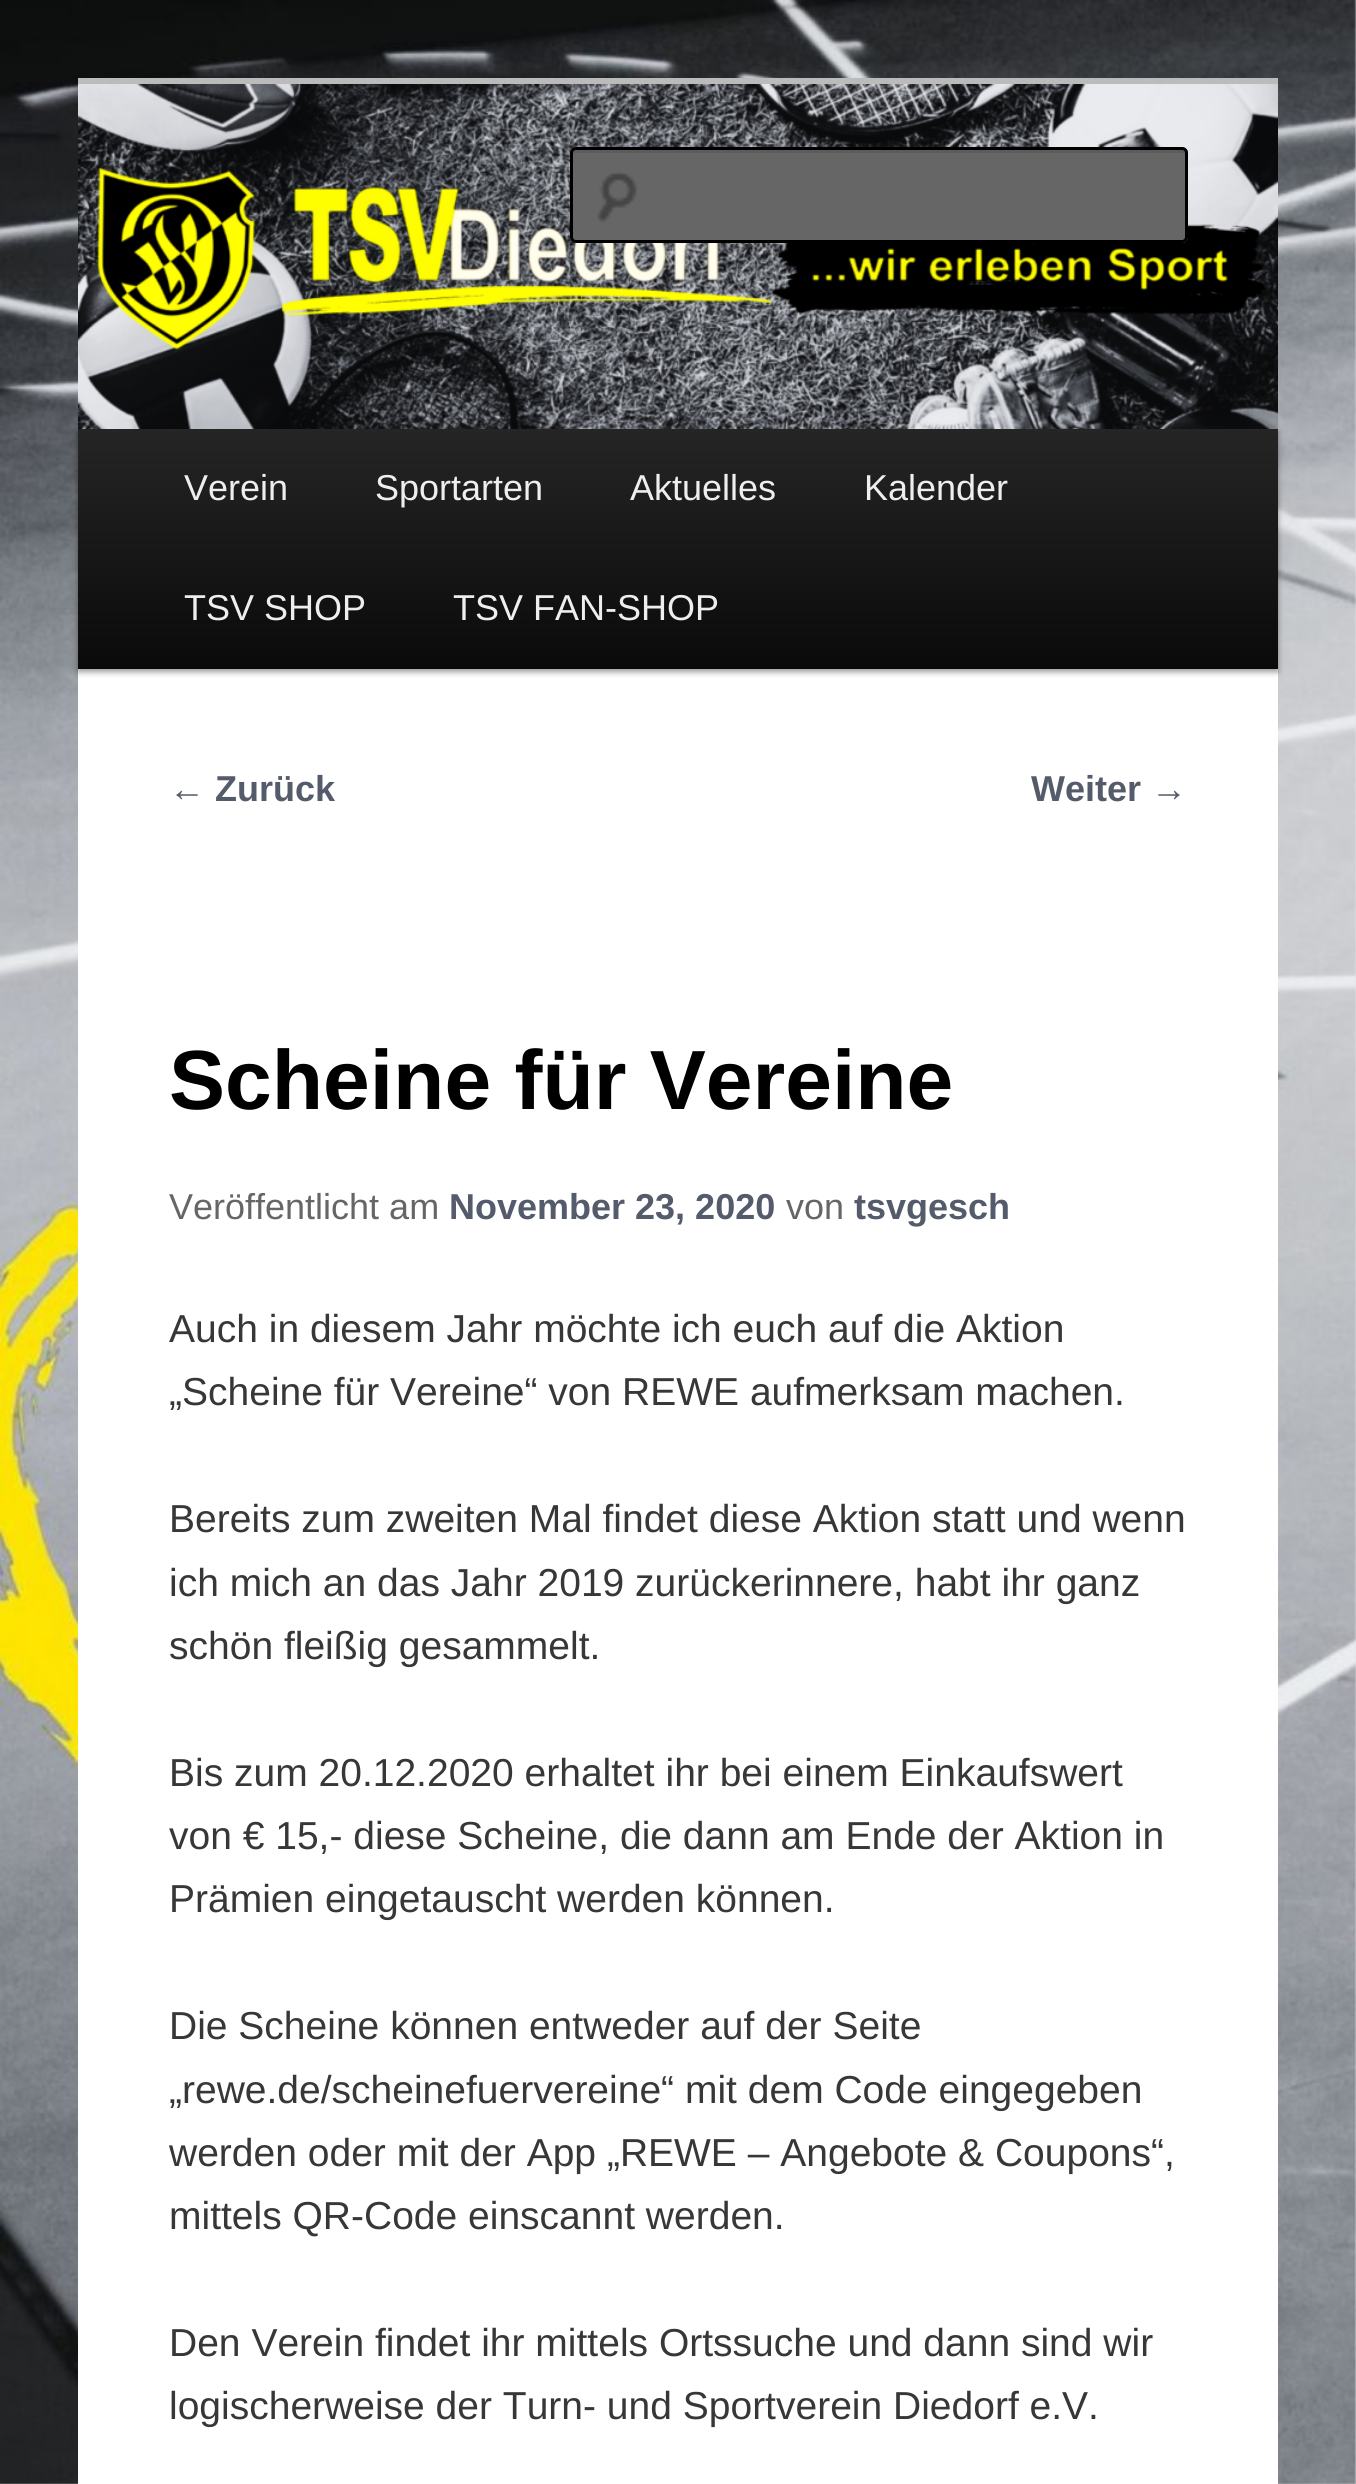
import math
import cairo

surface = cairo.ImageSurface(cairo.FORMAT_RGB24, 1356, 2484)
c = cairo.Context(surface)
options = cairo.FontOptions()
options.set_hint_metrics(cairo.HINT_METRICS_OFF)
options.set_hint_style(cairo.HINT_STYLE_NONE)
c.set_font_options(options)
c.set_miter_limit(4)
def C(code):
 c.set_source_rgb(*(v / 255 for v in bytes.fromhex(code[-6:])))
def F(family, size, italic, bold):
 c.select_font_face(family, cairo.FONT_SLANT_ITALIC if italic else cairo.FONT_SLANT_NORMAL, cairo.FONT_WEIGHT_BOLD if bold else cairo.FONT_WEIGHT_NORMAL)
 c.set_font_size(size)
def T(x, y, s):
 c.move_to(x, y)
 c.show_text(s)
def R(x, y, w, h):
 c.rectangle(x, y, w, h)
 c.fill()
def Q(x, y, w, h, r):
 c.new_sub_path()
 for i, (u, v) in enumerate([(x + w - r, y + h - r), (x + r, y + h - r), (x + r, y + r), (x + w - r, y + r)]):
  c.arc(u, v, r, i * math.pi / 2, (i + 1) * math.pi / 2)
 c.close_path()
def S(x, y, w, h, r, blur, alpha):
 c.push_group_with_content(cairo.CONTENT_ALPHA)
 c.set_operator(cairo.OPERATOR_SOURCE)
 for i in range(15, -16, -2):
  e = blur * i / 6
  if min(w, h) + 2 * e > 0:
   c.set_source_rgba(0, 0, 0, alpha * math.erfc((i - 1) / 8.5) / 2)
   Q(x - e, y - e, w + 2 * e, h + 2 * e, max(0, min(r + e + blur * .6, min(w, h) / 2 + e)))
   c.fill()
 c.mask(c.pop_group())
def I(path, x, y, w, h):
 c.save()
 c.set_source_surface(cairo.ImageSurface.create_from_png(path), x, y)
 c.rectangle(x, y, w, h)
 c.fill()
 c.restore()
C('e2e2e2')
c.paint()
I('1.png',0,0,1356,2484)
C('ffffff')
R(78,669,1200,1815)
C('bbbbbb')
R(78,78,1200,6)
C('000000')
S(78,432,1200,240,0,3,.4)
I('2.png',78,84,1200,345)
C('666666')
Q(570,147,618,96,6)
c.fill()
I('3.png',597,172,40,51)
C('5c5c5c')
c.new_path()
c.move_to(576,153)
c.line_to(1182,153)
c.curve_to(1184,153,1185,154,1185,156)
c.curve_to(1185,154,1185,150,1182,150)
c.line_to(576,150)
c.line_to(574,151)
c.line_to(573,156)
c.curve_to(573,154,574,153,576,153)
c.close_path()
c.fill()
Q(571.5,148.5,615,93,4.5)
C('000000')
c.set_line_width(3)
c.stroke()
gradient = cairo.LinearGradient(678,429,678,669)
gradient.add_color_stop_rgba(0,0.145,0.145,0.145,1)
gradient.add_color_stop_rgba(1,0.039,0.039,0.039,1)
c.set_source(gradient)
R(78,429,1200,240)
F('Liberation Sans',36,0,0)
C('eeeeee')
T(184,500,'Verein')
T(375,500,'Sportarten')
T(630,500,'Aktuelles')
T(864,500,'Kalender')
T(184,620,'TSV SHOP')
T(453,620,'TSV FAN-SHOP')
C('545b6b')
T(169,801,'←')
F('Liberation Sans',36,0,1)
T(215,801,'Zurück')
T(1031,801,'Weiter')
F('Liberation Sans',36,0,0)
T(1151,801,'→')
F('Liberation Sans',84,0,1)
C('000000')
T(169,1109,'Scheine für Vereine')
F('Liberation Sans',36,0,0)
C('666666')
T(169,1219,'Veröffentlicht am')
F('Liberation Sans',36,0,1)
C('545b6b')
T(449,1219,'November 23, 2020')
F('Liberation Sans',36,0,0)
C('666666')
T(786,1219,'von')
F('Liberation Sans',36,0,1)
C('545b6b')
T(854,1219,'tsvgesch')
F('Liberation Sans',39,0,0)
C('373737')
T(169,1342,'Auch in diesem Jahr möchte ich euch auf die Aktion')
T(169,1405,'„Scheine für Vereine“ von REWE aufmerksam machen.')
T(169,1532,'Bereits zum zweiten Mal findet diese Aktion statt und wenn')
T(169,1596,'ich mich an das Jahr 2019 zurückerinnere, habt ihr ganz')
T(169,1659,'schön fleißig gesammelt.')
T(169,1786,'Bis zum 20.12.2020 erhaltet ihr bei einem Einkaufswert')
T(169,1849,'von € 15,- diese Scheine, die dann am Ende der Aktion in')
T(169,1912,'Prämien eingetauscht werden können.')
T(169,2039,'Die Scheine können entweder auf der Seite')
T(169,2103,'„rewe.de/scheinefuervereine“ mit dem Code eingegeben')
T(169,2166,'werden oder mit der App „REWE – Angebote & Coupons“,')
T(169,2229,'mittels QR-Code einscannt werden.')
T(169,2356,'Den Verein findet ihr mittels Ortssuche und dann sind wir')
T(169,2419,'logischerweise der Turn- und Sportverein Diedorf e.V.')
surface.write_to_png('o.png')
